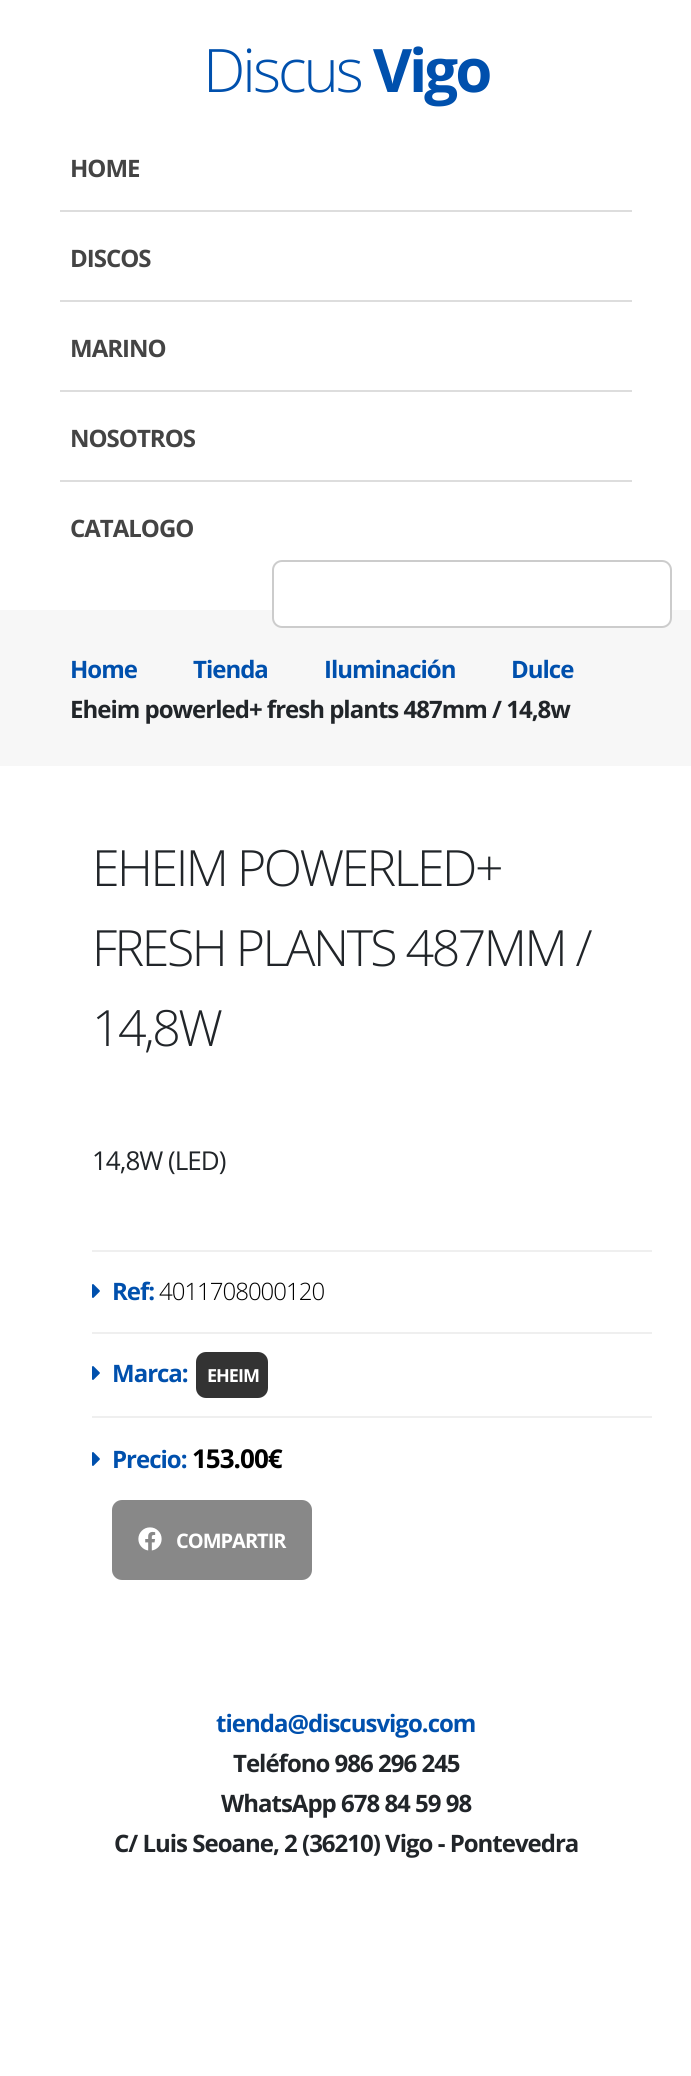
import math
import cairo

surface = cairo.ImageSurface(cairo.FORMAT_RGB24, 691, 2076)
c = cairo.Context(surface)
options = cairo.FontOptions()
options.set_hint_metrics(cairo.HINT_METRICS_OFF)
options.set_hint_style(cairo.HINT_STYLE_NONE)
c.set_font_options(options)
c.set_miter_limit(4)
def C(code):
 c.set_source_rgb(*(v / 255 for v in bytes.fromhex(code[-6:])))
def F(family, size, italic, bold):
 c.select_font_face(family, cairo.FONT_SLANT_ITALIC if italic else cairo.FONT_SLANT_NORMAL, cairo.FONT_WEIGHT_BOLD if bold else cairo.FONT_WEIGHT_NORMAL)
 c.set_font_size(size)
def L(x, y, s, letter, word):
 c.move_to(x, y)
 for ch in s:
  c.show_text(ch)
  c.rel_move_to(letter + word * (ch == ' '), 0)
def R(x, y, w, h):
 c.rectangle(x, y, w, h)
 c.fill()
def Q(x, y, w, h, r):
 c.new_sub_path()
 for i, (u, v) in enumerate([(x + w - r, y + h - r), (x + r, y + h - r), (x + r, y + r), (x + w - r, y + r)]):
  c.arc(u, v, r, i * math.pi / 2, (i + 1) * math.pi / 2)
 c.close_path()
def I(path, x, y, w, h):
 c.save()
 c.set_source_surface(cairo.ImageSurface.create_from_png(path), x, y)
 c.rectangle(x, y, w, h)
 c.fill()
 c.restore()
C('ffffff')
c.paint()
F('Open Sans Light',60,0,0)
C('0050ad')
L(203,92,'Discus',-3,0)
F('Open Sans',60,0,1)
L(373,92,'Vigo',-3,0)
F('Open Sans',24,0,1)
C('444444')
L(70,177,'HOME',-1,0)
C('dddddd')
R(60,210,572,2)
C('444444')
L(70,267,'DISCOS',-1,0)
C('dddddd')
R(60,300,572,2)
C('444444')
L(70,357,'MARINO',-1,0)
C('dddddd')
R(60,390,572,2)
C('444444')
L(70,447,'NOSOTROS',-1,0)
C('dddddd')
R(60,480,572,2)
C('444444')
L(70,537,'CATALOGO',-1,0)
C('f7f7f7')
R(0,610,691,156)
C('ffffff')
Q(273,561,398,66,9)
c.fill_preserve()
C('cccccc')
c.stroke()
C('0050ad')
L(70,678,'Home',-1,0)
L(193,678,'Tienda',-1,0)
L(324,678,'Iluminación',-1,0)
L(511,678,'Dulce',-1,0)
C('212529')
L(70,718,'Eheim powerled+ fresh plants 487mm / 14,8w',-1,0)
F('Open Sans Light',50,0,0)
L(92,886,'EHEIM POWERLED+',-2.5,0)
L(92,966,'FRESH PLANTS 487MM /',-2.5,0)
L(92,1046,'14,8W',-2.5,0)
F('Open Sans',26,0,0)
L(92,1170,'14,8W (LED)',-1,0)
C('efefef')
R(92,1250,560,2)
I('1.png',92,1284,8,14)
F('Open Sans',24,0,1)
C('0050ad')
L(112,1300,'Ref:',-1,0)
F('Open Sans Light',24,0,0)
C('000000')
L(159,1300,'4011708000120',-1,0)
C('efefef')
R(92,1332,560,2)
I('1.png',92,1366,8,14)
F('Open Sans',24,0,1)
C('0050ad')
L(112,1382,'Marca:',-1,0)
C('333333')
Q(196,1352,72,46,10)
c.fill()
F('Open Sans',18,0,1)
C('ffffff')
L(207,1382,'EHEIM',-1,0)
C('efefef')
R(92,1416,560,2)
I('1.png',92,1452,8,14)
F('Open Sans',24,0,1)
C('0050ad')
L(112,1468,'Precio:',-1,0)
F('Open Sans',26,0,1)
C('000000')
L(192,1468,'153.00€',-1,0)
C('888888')
Q(112,1500,200,80,10)
c.fill()
I('2.png',138,1527,24,24)
F('Open Sans',20,0,1)
C('ffffff')
L(176,1548,'COMPARTIR',-1,0)
F('Open Sans',24,0,1)
C('0050ad')
L(216,1732,'tienda@discusvigo.com',-1,0)
C('212529')
L(233,1772,'Teléfono 986 296 245',-1,0)
L(221,1812,'WhatsApp 678 84 59 98',-1,0)
L(114,1852,'C/ Luis Seoane, 2 (36210) Vigo - Pontevedra',-1,0)
surface.write_to_png('o.png')
